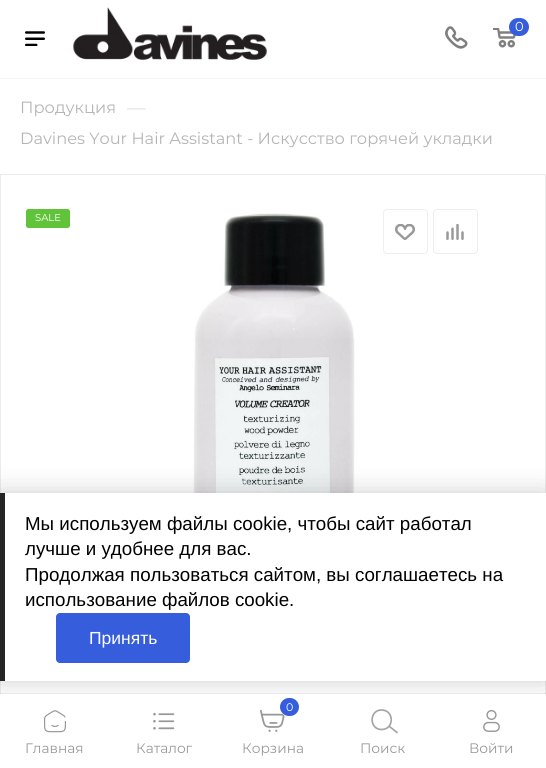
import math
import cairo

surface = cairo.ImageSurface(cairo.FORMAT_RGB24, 546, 768)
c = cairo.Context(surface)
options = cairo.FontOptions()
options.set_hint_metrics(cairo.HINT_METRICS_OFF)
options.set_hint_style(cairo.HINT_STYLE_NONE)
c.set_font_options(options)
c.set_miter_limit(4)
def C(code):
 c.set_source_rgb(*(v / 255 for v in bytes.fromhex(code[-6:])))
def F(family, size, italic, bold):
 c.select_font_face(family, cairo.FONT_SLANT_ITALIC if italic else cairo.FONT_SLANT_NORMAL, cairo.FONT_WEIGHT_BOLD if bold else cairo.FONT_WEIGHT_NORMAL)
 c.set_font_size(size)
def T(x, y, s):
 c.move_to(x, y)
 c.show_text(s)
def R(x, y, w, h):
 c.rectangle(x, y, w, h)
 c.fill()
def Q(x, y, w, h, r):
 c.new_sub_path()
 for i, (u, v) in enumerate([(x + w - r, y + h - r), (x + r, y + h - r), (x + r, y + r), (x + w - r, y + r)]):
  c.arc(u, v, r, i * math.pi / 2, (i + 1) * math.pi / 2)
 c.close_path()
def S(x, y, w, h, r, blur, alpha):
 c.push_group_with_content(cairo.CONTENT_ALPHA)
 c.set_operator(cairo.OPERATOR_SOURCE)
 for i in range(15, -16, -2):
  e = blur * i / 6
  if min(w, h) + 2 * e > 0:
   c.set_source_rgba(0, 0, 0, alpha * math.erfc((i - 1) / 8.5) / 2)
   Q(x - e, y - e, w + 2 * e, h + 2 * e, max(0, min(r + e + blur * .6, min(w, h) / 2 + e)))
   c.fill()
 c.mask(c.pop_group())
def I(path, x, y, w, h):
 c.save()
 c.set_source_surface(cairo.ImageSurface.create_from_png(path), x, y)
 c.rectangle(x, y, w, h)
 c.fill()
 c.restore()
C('ffffff')
c.paint()
C('f5f5f5')
R(0,78,546,1)
I('1.png',73,7,194,53)
I('2.png',445,26,23,23)
I('3.png',493,28,23,20)
C('365edc')
Q(509,18,20,18,9)
c.fill()
F('Montserrat',13,0,0)
C('ffffff')
T(515,31,'0')
I('4.png',25,31,20,15)
F('Montserrat',16.25,0,0)
C('b6b5b5')
T(20,113,'Продукция')
F('Montserrat',18.75,0,0)
C('dddddd')
T(127,114,'—')
F('Montserrat',16.25,0,0)
C('b6b5b5')
T(20,144,'Davines Your Hair Assistant - Искусство горячей укладки')
c.rectangle(.5,174.5,545,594)
C('ececec')
c.set_line_width(1)
c.stroke()
C('60c339')
Q(26,209,44,19,2.5)
c.fill()
F('Montserrat',10,0,0)
C('ffffff')
T(35,221,'SALE')
I('5.png',193,213,162,280)
Q(383.5,209.5,44,44,3.5)
C('eeeeee')
c.stroke()
I('6.png',395,224,20,16)
Q(433.5,209.5,44,44,3.5)
c.stroke()
I('7.png',446,224,18,16)
C('000000')
S(0,493,546,188,0,12.5,.2)
C('ffffff')
R(5,493,541,188)
C('252525')
R(0,493,5,188)
F('Liberation Sans',18.75,0,0)
C('000000')
T(25,530,'Мы используем файлы cookie, чтобы сайт работал')
T(25,555,'лучше и удобнее для вас.')
T(25,581,'Продолжая пользоваться сайтом, вы соглашаетесь на')
T(25,606,'использование файлов cookie.')
C('365edc')
Q(56.5,613.5,133,49,3.5)
c.fill_preserve()
c.stroke()
F('Liberation Sans',17.5,0,0)
C('ffffff')
T(89,644,'Принять')
c.set_source_rgba(0,0,0,0.06)
R(0,693,546,1)
C('ffffff')
R(0,694,546,74)
I('8.png',44,710,22,23)
F('Montserrat',13.75,0,0)
C('999999')
T(25,753,'Главная')
I('9.png',153,712,22,18)
T(136,753,'Каталог')
I('10.png',260,709,25,23)
C('365edc')
Q(280,698,19,18,9)
c.fill()
F('Montserrat',11,0,0)
C('ffffff')
T(286,711,'0')
F('Montserrat',13.75,0,0)
C('999999')
T(242,753,'Корзина')
c.new_path()
c.move_to(381.5,729.5)
c.curve_to(394.5,729.5,394.5,710,381.5,710)
c.curve_to(369,710,369,729.5,381.5,729.5)
c.close_path()
C('a6a5a4')
c.set_line_width(1.7)
c.stroke()
c.new_path()
c.move_to(397,732.5)
c.line_to(389.5,726.5)
c.set_line_cap(cairo.LINE_CAP_ROUND)
c.stroke()
C('999999')
T(360,753,'Поиск')
I('11.png',483,710,17,22)
T(469,753,'Войти')
surface.write_to_png('o.png')
